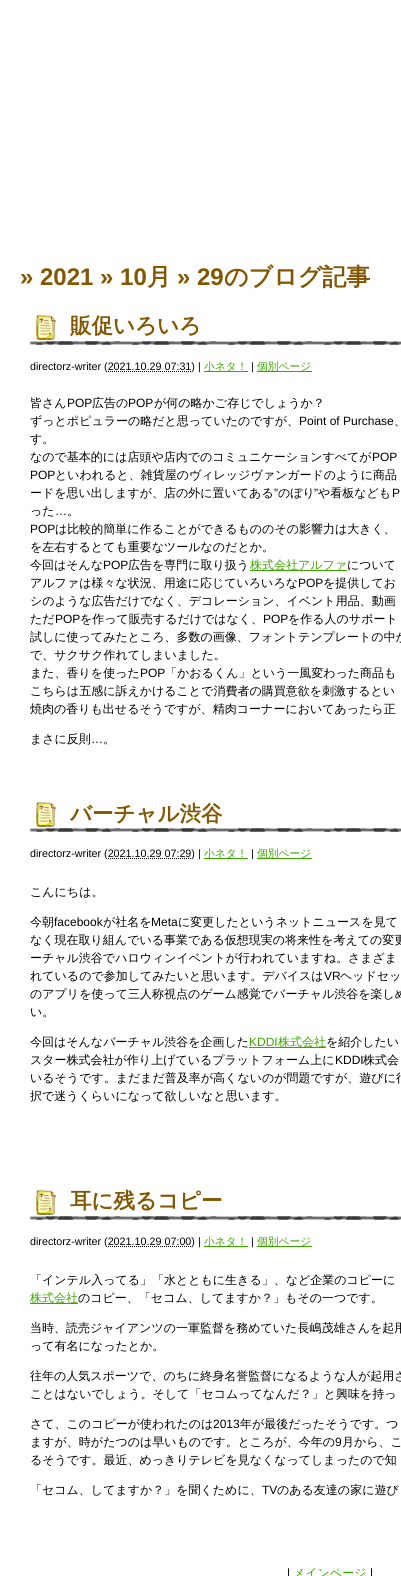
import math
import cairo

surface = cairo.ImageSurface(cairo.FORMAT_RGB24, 401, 1576)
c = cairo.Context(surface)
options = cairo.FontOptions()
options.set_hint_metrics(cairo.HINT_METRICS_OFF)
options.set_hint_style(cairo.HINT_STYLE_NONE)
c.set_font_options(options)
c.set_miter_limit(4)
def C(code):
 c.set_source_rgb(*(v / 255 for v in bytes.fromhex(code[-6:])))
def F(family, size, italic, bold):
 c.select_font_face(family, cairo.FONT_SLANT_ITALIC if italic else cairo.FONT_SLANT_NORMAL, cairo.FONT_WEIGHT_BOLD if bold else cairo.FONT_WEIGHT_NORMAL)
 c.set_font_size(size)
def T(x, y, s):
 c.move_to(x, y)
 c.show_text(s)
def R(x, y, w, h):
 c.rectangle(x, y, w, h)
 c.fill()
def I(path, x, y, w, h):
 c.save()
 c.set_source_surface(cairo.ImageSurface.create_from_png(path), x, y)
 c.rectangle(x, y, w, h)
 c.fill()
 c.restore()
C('ffffff')
c.paint()
F('Liberation Sans',24,0,1)
C('825700')
T(20,285,'» 2021 » 10')
F('WenQuanYi Zen Hei',24,0,1)
T(147,285,'月')
F('Liberation Sans',24,0,1)
T(177,285,'» 29')
F('WenQuanYi Zen Hei',24,0,1)
T(224,285,'のブログ記事')
I('1.png',29,314,372,31)
F('WenQuanYi Zen Hei',21.5,0,1)
T(70,333,'販促いろいろ')
F('Liberation Sans',10.75,0,0)
C('000000')
T(30,370,'directorz-writer (2021.10.29 07:31) |')
c.new_path()
c.move_to(108,371.5)
c.line_to(192,371.5)
c.set_line_width(1)
c.set_dash([1,1])
c.stroke()
C('3ca600')
R(204,371,44,1)
F('WenQuanYi Zen Hei Medium',10.75,0,0)
T(204,370,'小ネタ！')
F('Liberation Sans',10.75,0,0)
C('000000')
T(251,370,'|')
C('3ca600')
R(257,371,55,1)
F('WenQuanYi Zen Hei Medium',10.75,0,0)
T(257,370,'個別ページ')
F('WenQuanYi Zen Hei Medium',12,0,0)
C('000000')
T(30,407,'皆さん')
F('Liberation Sans',12,0,0)
T(67,407,'POP')
F('WenQuanYi Zen Hei Medium',12,0,0)
T(92,407,'広告の')
F('Liberation Sans',12,0,0)
T(128,407,'POP')
F('WenQuanYi Zen Hei Medium',12,0,0)
T(154,407,'が何の略かご存じでしょうか？')
T(30,425,'ずっとポピュラーの略だと思っていたのですが、')
F('Liberation Sans',12,0,0)
T(299,425,'Point of Purchase')
F('WenQuanYi Zen Hei Medium',12,0,0)
T(394,425,'、')
T(30,443,'す。')
T(30,461,'なので基本的には店頭や店内でのコミュニケーションすべてが')
F('Liberation Sans',12,0,0)
T(372,461,'POP')
T(30,479,'POP')
F('WenQuanYi Zen Hei Medium',12,0,0)
T(55,479,'といわれると、雑貨屋のヴィレッジヴァンガードのように商品')
T(30,497,'ードを思い出しますが、店の外に置いてある')
F('Liberation Sans',12,0,0)
T(274,497,'”')
F('WenQuanYi Zen Hei Medium',12,0,0)
T(278,497,'のぼり')
F('Liberation Sans',12,0,0)
T(314,497,'”')
F('WenQuanYi Zen Hei Medium',12,0,0)
T(318,497,'や看板なども')
F('Liberation Sans',12,0,0)
T(392,497,'P')
F('WenQuanYi Zen Hei Medium',12,0,0)
T(30,515,'った')
F('Liberation Sans',12,0,0)
T(55,515,'…')
F('WenQuanYi Zen Hei Medium',12,0,0)
T(67,515,'。')
F('Liberation Sans',12,0,0)
T(30,533,'POP')
F('WenQuanYi Zen Hei Medium',12,0,0)
T(55,533,'は比較的簡単に作ることができるもののその影響力は大きく、')
T(30,551,'を左右するとても重要なツールなのだとか。')
T(30,569,'今回はそんな')
F('Liberation Sans',12,0,0)
T(103,569,'POP')
F('WenQuanYi Zen Hei Medium',12,0,0)
T(128,569,'広告を専門に取り扱う')
C('3ca600')
R(250,570,97,1)
T(250,569,'株式会社アルファ')
C('000000')
T(347,569,'について')
T(30,587,'アルファは様々な状況、用途に応じていろいろな')
F('Liberation Sans',12,0,0)
T(298,587,'POP')
F('WenQuanYi Zen Hei Medium',12,0,0)
T(323,587,'を提供してお')
T(30,605,'シのような広告だけでなく、デコレーション、イベント用品、動画')
T(30,623,'ただ')
F('Liberation Sans',12,0,0)
T(55,623,'POP')
F('WenQuanYi Zen Hei Medium',12,0,0)
T(80,623,'を作って販売するだけではなく、')
F('Liberation Sans',12,0,0)
T(263,623,'POP')
F('WenQuanYi Zen Hei Medium',12,0,0)
T(288,623,'を作る人のサポート')
T(30,641,'試しに使ってみたところ、多数の画像、フォントテンプレートの中か')
T(30,659,'で、サクサク作れてしまいました。')
T(30,677,'また、香りを使った')
F('Liberation Sans',12,0,0)
T(140,677,'POP')
F('WenQuanYi Zen Hei Medium',12,0,0)
T(165,677,'「かおるくん」という一風変わった商品も')
T(30,695,'こちらは五感に訴えかけることで消費者の購買意欲を刺激するとい')
T(30,713,'焼肉の香りも出せるそうですが、精肉コーナーにおいてあったら正')
T(30,743,'まさに反則')
F('Liberation Sans',12,0,0)
T(91,743,'…')
F('WenQuanYi Zen Hei Medium',12,0,0)
T(103,743,'。')
I('1.png',29,801,372,31)
F('WenQuanYi Zen Hei',21.5,0,1)
C('825700')
T(70,821,'バーチャル渋谷')
F('Liberation Sans',10.75,0,0)
C('000000')
T(30,857,'directorz-writer (2021.10.29 07:29) |')
c.new_path()
c.move_to(108,858.5)
c.line_to(192,858.5)
c.stroke()
C('3ca600')
R(204,858,44,1)
F('WenQuanYi Zen Hei Medium',10.75,0,0)
T(204,857,'小ネタ！')
F('Liberation Sans',10.75,0,0)
C('000000')
T(251,857,'|')
C('3ca600')
R(257,858,55,1)
F('WenQuanYi Zen Hei Medium',10.75,0,0)
T(257,857,'個別ページ')
F('WenQuanYi Zen Hei Medium',12,0,0)
C('000000')
T(30,896,'こんにちは。')
T(30,926,'今朝')
F('Liberation Sans',12,0,0)
T(54,926,'facebook')
F('WenQuanYi Zen Hei Medium',12,0,0)
T(103,926,'が社名を')
F('Liberation Sans',12,0,0)
T(151,926,'Meta')
F('WenQuanYi Zen Hei Medium',12,0,0)
T(178,926,'に変更したというネットニュースを見て')
T(30,944,'なく現在取り組んでいる事業である仮想現実の将来性を考えての変更')
T(30,962,'ーチャル渋谷でハロウィンイベントが行われていますね。さまざま')
T(30,980,'れているので参加してみたいと思います。デバイスは')
F('Liberation Sans',12,0,0)
T(324,980,'VR')
F('WenQuanYi Zen Hei Medium',12,0,0)
T(340,980,'ヘッドセッ')
T(30,998,'のアプリを使って三人称視点のゲーム感覚でバーチャル渋谷を楽しめ')
T(30,1016,'い。')
T(30,1046,'今回はそんなバーチャル渋谷を企画した')
F('Liberation Sans',12,0,0)
C('3ca600')
T(249,1046,'KDDI')
R(249,1047,77,1)
F('WenQuanYi Zen Hei Medium',12,0,0)
T(278,1046,'株式会社')
C('000000')
T(326,1046,'を紹介したい')
T(30,1064,'スター株式会社が作り上げているプラットフォーム上に')
F('Liberation Sans',12,0,0)
T(335,1064,'KDDI')
F('WenQuanYi Zen Hei Medium',12,0,0)
T(363,1064,'株式会')
T(30,1082,'いるそうです。まだまだ普及率が高くないのが問題ですが、遊びに行')
T(30,1100,'択で迷うくらいになって欲しいなと思います。')
I('1.png',29,1189,372,31)
F('WenQuanYi Zen Hei',21.5,0,1)
C('825700')
T(70,1208,'耳に残るコピー')
F('Liberation Sans',10.75,0,0)
C('000000')
T(30,1245,'directorz-writer (2021.10.29 07:00) |')
c.new_path()
c.move_to(108,1246.5)
c.line_to(192,1246.5)
c.stroke()
C('3ca600')
R(204,1246,44,1)
F('WenQuanYi Zen Hei Medium',10.75,0,0)
T(204,1245,'小ネタ！')
F('Liberation Sans',10.75,0,0)
C('000000')
T(251,1245,'|')
C('3ca600')
R(257,1246,55,1)
F('WenQuanYi Zen Hei Medium',10.75,0,0)
T(257,1245,'個別ページ')
F('WenQuanYi Zen Hei Medium',12,0,0)
C('000000')
T(30,1284,'「インテル入ってる」「水とともに生きる」、など企業のコピーに')
C('3ca600')
R(30,1303,48,1)
T(30,1302,'株式会社')
C('000000')
T(78,1302,'のコピー、「セコム、してますか？」もその一つです。')
T(30,1332,'当時、読売ジャイアンツの一軍監督を務めていた長嶋茂雄さんを起用')
T(30,1350,'って有名になったとか。')
T(30,1380,'往年の人気スポーツで、のちに終身名誉監督になるような人が起用さ')
T(30,1398,'ことはないでしょう。そして「セコムってなんだ？」と興味を持っ')
T(30,1428,'さて、このコピーが使われたのは')
F('Liberation Sans',12,0,0)
T(213,1428,'2013')
F('WenQuanYi Zen Hei Medium',12,0,0)
T(240,1428,'年が最後だったそうです。つ')
T(30,1446,'ますが、時がたつのは早いものです。ところが、今年の')
F('Liberation Sans',12,0,0)
T(335,1446,'9')
F('WenQuanYi Zen Hei Medium',12,0,0)
T(342,1446,'月から、こ')
T(30,1464,'るそうです。最近、めっきりテレビを見なくなってしまったので知')
T(30,1494,'「セコム、してますか？」を聞くために、')
F('Liberation Sans',12,0,0)
T(262,1494,'TV')
F('WenQuanYi Zen Hei Medium',12,0,0)
T(277,1494,'のある友達の家に遊び')
F('Liberation Sans',12,0,0)
T(287,1577,'|')
F('WenQuanYi Zen Hei Medium',12,0,0)
C('3ca600')
T(293,1577,'メインページ')
F('Liberation Sans',12,0,0)
C('000000')
T(370,1577,'|')
surface.write_to_png('o.png')
